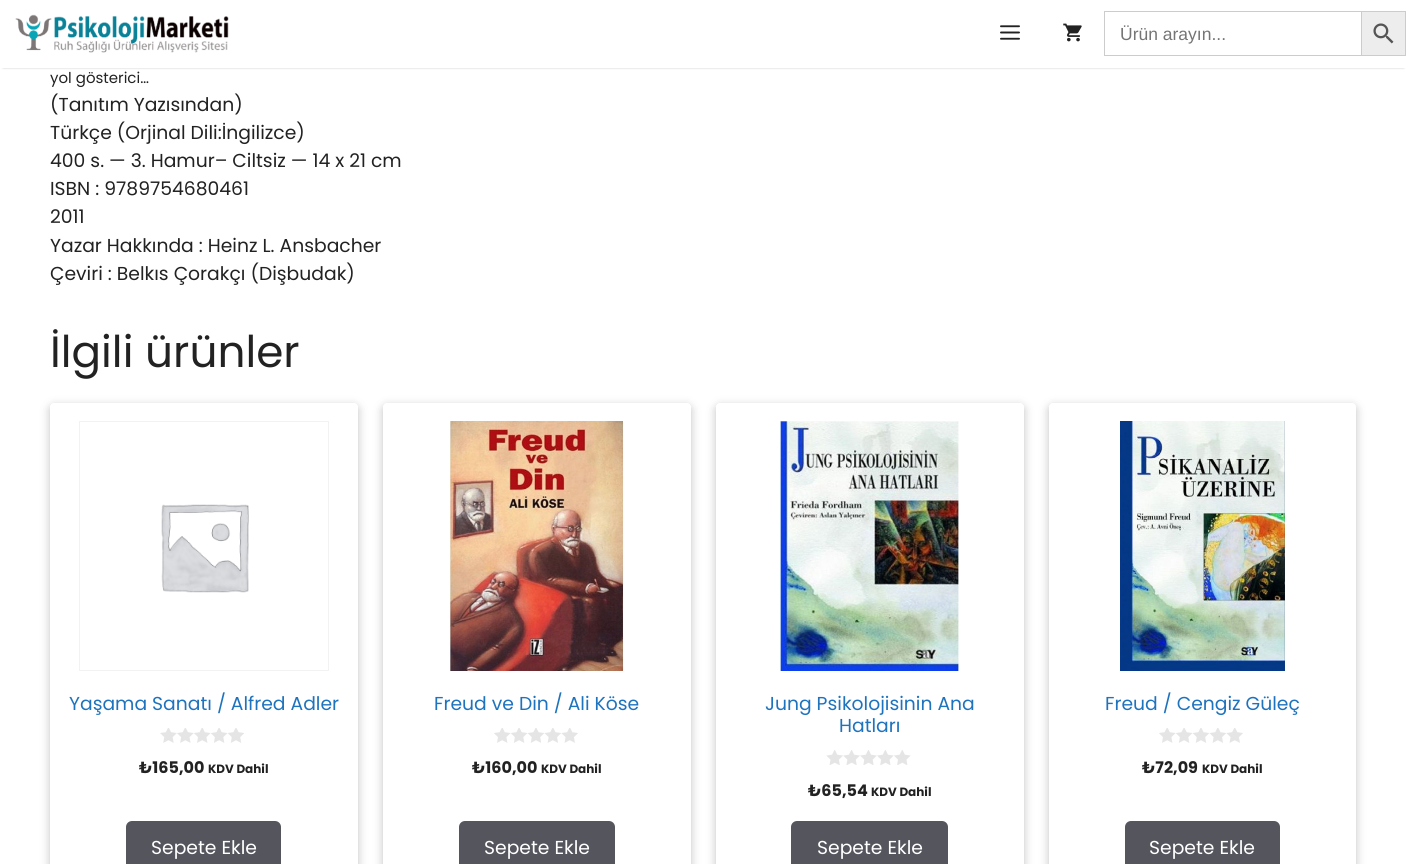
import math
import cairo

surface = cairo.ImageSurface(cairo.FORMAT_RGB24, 1406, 864)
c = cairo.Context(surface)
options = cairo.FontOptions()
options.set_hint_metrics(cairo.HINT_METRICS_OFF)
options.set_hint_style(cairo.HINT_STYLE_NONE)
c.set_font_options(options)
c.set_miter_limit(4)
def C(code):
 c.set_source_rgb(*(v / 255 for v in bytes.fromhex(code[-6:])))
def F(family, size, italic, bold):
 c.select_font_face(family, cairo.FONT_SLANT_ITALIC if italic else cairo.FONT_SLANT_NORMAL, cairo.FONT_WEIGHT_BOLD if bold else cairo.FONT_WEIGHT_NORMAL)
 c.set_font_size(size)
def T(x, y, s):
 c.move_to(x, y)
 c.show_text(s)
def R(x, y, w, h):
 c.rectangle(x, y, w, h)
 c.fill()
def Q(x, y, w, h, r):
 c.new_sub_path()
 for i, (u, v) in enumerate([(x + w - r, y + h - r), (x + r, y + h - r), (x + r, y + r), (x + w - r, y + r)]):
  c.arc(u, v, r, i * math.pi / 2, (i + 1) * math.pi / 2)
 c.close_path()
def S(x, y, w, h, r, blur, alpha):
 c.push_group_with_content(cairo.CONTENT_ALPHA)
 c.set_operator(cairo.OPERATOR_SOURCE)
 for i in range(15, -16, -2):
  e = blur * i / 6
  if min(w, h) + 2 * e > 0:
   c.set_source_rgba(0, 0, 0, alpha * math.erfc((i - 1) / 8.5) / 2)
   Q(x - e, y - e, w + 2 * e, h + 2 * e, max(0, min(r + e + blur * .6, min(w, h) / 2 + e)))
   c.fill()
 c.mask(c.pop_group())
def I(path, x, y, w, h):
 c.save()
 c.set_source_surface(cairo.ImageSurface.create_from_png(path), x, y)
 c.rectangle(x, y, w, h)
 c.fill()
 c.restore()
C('ffffff')
c.paint()
C('000000')
S(3,5,1401,63,0,1,.2)
C('ffffff')
R(1,3,1405,65)
I('1.png',15,14,214,39)
I('2.png',1000,25,20,15)
I('3.png',1063,23,19,19)
C('cccccc')
R(1104,11,257,1)
R(1104,55,257,1)
R(1104,11,1,45)
F('Liberation Sans',17.5,0,0)
C('757575')
T(1120,40,'Ürün arayın...')
C('ededed')
c.rectangle(1361.5,11.5,44,44)
c.fill_preserve()
C('cccccc')
c.set_line_width(1)
c.stroke()
I('4.png',1373,23,21,21)
F('Poppins',15,0,0)
C('222222')
T(50,83,'yol gösterici…')
F('Poppins',18.75,0,0)
T(50,111,'(Tanıtım Yazısından)')
T(50,139,'Türkçe (Orjinal Dili:İngilizce)')
T(50,167,'400 s. — 3. Hamur– Ciltsiz — 14 x 21 cm')
T(50,195,'ISBN : 9789754680461')
T(50,223,'2011')
T(50,252,'Yazar Hakkında : Heinz L. Ansbacher')
T(50,280,'Çeviri : Belkıs Çorakçı (Dişbudak)')
F('Poppins',43.75,0,0)
T(50,367,'İlgili ürünler')
c.save()
c.set_fill_rule(cairo.FILL_RULE_EVEN_ODD)
c.new_path()
c.move_to(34,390)
c.line_to(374,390)
c.line_to(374,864)
c.line_to(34,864)
c.close_path()
c.move_to(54,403)
c.line_to(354,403)
c.curve_to(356,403,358,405,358,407)
c.line_to(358,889)
c.curve_to(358,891,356,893,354,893)
c.line_to(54,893)
c.curve_to(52,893,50,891,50,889)
c.line_to(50,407)
c.curve_to(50,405,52,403,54,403)
c.close_path()
c.clip()
C('000000')
S(50,406,308,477,4,5,.24)
c.restore()
c.rectangle(79.5,421.5,249,249)
C('f2f2f2')
c.stroke()
I('5.png',161,504,88,89)
F('Poppins',18.75,0,0)
C('1e73be')
T(69,710,'Yaşama Sanatı / Alfred Adler')
I('6.png',160,728,84,15)
F('Poppins',16,0,1)
C('222222')
T(139,773,'₺165,00')
F('Poppins',12,0,1)
T(208,773,'KDV Dahil')
C('55555e')
Q(126,821,155,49,6)
c.fill()
F('Poppins',18.75,0,0)
C('ffffff')
T(151,854,'Sepete Ekle')
c.save()
c.set_fill_rule(cairo.FILL_RULE_EVEN_ODD)
c.new_path()
c.move_to(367,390)
c.line_to(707,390)
c.line_to(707,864)
c.line_to(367,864)
c.close_path()
c.move_to(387,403)
c.line_to(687,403)
c.curve_to(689,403,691,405,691,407)
c.line_to(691,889)
c.curve_to(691,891,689,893,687,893)
c.line_to(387,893)
c.curve_to(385,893,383,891,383,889)
c.line_to(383,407)
c.curve_to(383,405,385,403,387,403)
c.close_path()
c.clip()
C('000000')
S(383,406,308,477,4,5,.24)
c.restore()
I('7.png',450,421,174,250)
C('1e73be')
T(434,710,'Freud ve Din / Ali Köse')
I('8.png',494,728,84,15)
F('Poppins',16,0,1)
C('222222')
T(472,773,'₺160,00')
F('Poppins',12,0,1)
T(541,773,'KDV Dahil')
C('55555e')
Q(459,821,156,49,6)
c.fill()
F('Poppins',18.75,0,0)
C('ffffff')
T(484,854,'Sepete Ekle')
c.save()
c.set_fill_rule(cairo.FILL_RULE_EVEN_ODD)
c.new_path()
c.move_to(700,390)
c.line_to(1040,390)
c.line_to(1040,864)
c.line_to(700,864)
c.close_path()
c.move_to(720,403)
c.line_to(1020,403)
c.curve_to(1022,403,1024,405,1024,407)
c.line_to(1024,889)
c.curve_to(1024,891,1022,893,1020,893)
c.line_to(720,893)
c.curve_to(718,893,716,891,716,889)
c.line_to(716,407)
c.curve_to(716,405,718,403,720,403)
c.close_path()
c.clip()
C('000000')
S(716,406,308,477,4,5,.24)
c.restore()
I('9.png',780,421,179,250)
C('1e73be')
T(765,710,'Jung Psikolojisinin Ana')
T(839,732,'Hatları')
I('10.png',826,750,85,15)
F('Poppins',16,0,1)
C('222222')
T(808,796,'₺65,54')
F('Poppins',12,0,1)
T(871,796,'KDV Dahil')
C('55555e')
Q(791,821,157,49,6)
c.fill()
F('Poppins',18.75,0,0)
C('ffffff')
T(817,854,'Sepete Ekle')
c.save()
c.set_fill_rule(cairo.FILL_RULE_EVEN_ODD)
c.new_path()
c.move_to(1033,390)
c.line_to(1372,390)
c.line_to(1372,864)
c.line_to(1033,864)
c.close_path()
c.move_to(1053,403)
c.line_to(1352,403)
c.curve_to(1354,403,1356,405,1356,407)
c.line_to(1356,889)
c.curve_to(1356,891,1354,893,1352,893)
c.line_to(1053,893)
c.curve_to(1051,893,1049,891,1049,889)
c.line_to(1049,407)
c.curve_to(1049,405,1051,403,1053,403)
c.close_path()
c.clip()
C('000000')
S(1049,406,307,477,4,5,.24)
c.restore()
I('11.png',1120,421,165,250)
C('1e73be')
T(1105,710,'Freud / Cengiz Güleç')
I('8.png',1159,728,84,15)
F('Poppins',16,0,1)
C('222222')
T(1142,773,'₺72,09')
F('Poppins',12,0,1)
T(1202,773,'KDV Dahil')
C('55555e')
Q(1125,821,155,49,6)
c.fill()
F('Poppins',18.75,0,0)
C('ffffff')
T(1149,854,'Sepete Ekle')
surface.write_to_png('o.png')
